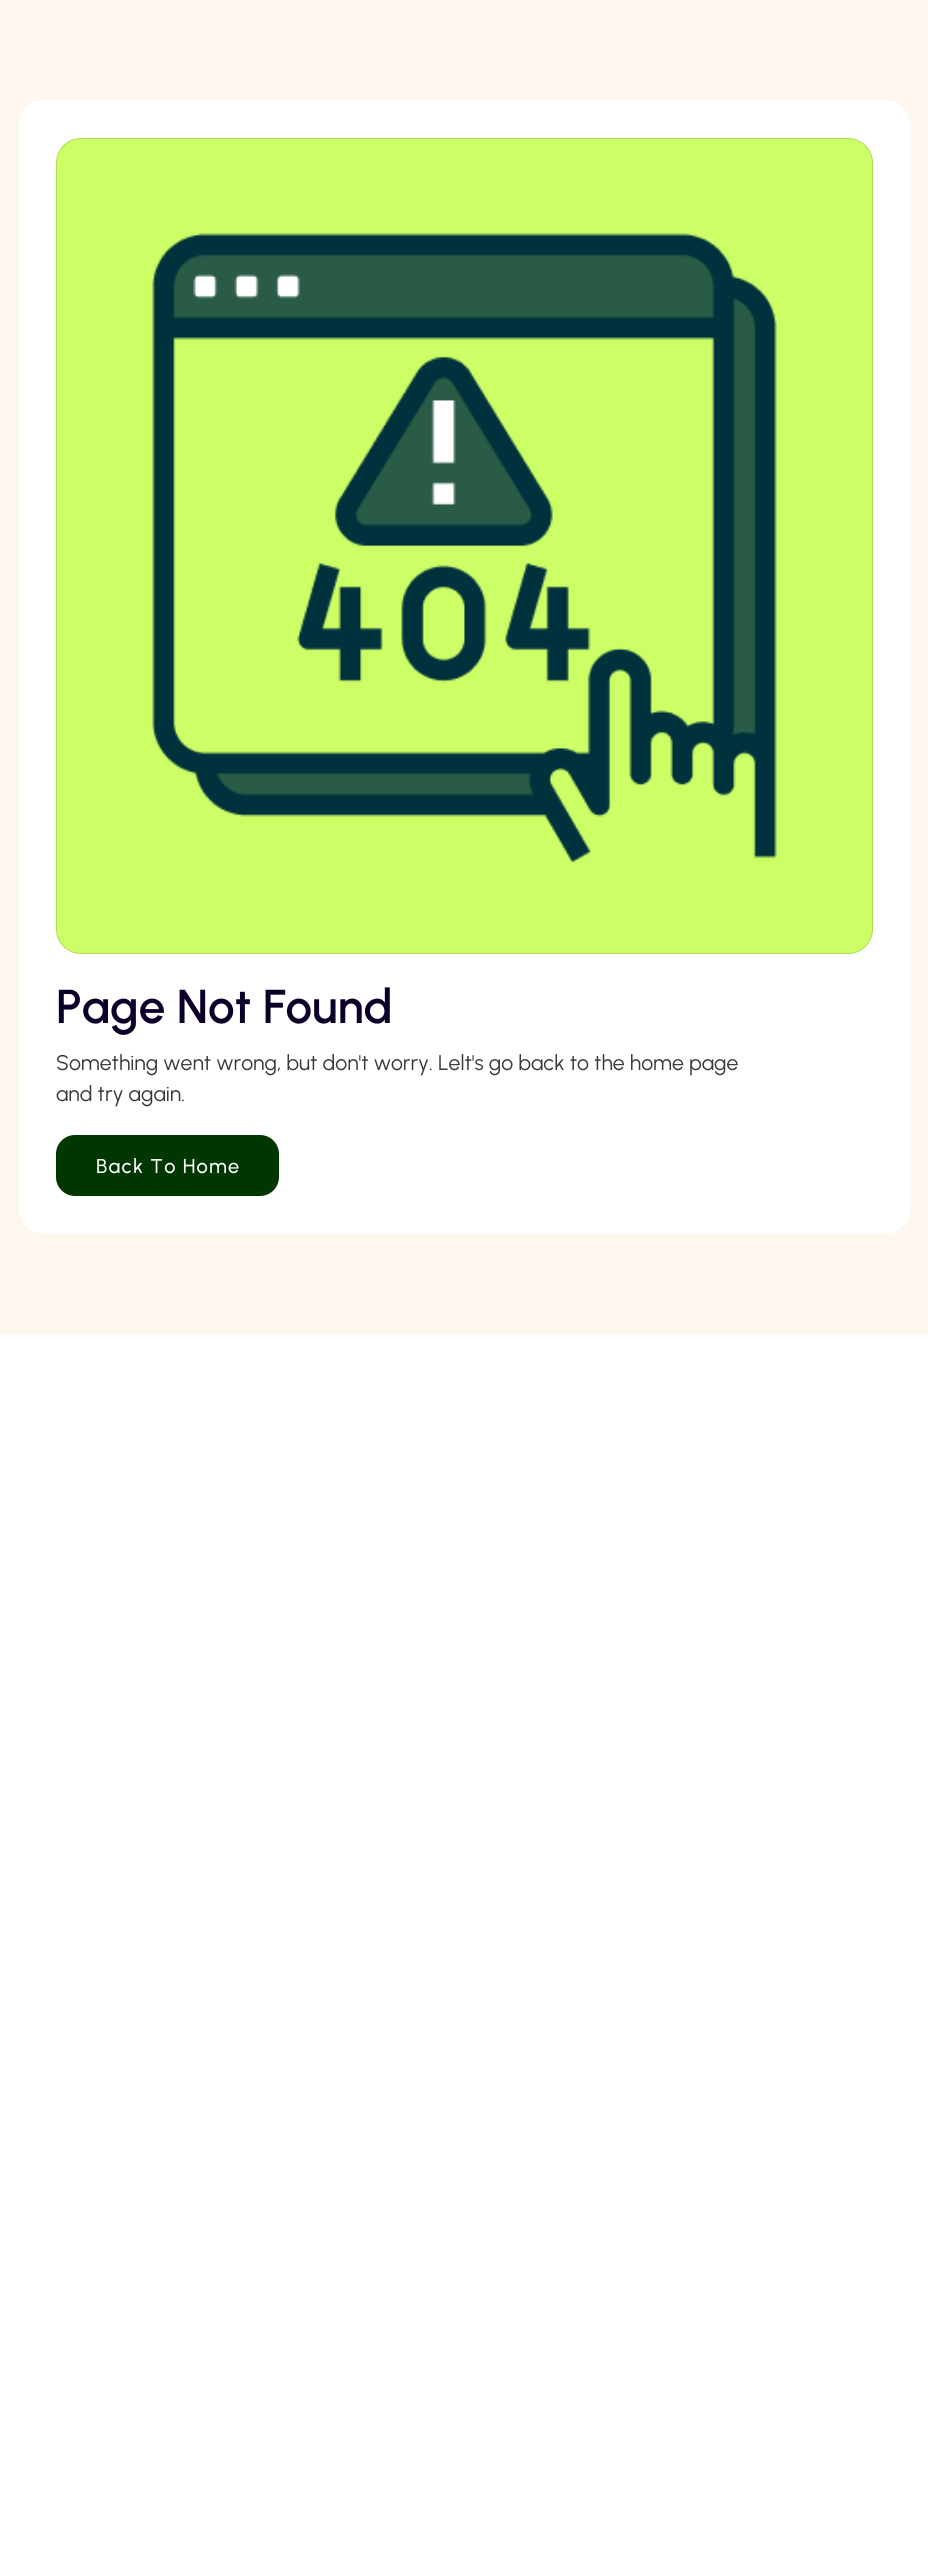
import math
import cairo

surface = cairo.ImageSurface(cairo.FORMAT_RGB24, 928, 2565)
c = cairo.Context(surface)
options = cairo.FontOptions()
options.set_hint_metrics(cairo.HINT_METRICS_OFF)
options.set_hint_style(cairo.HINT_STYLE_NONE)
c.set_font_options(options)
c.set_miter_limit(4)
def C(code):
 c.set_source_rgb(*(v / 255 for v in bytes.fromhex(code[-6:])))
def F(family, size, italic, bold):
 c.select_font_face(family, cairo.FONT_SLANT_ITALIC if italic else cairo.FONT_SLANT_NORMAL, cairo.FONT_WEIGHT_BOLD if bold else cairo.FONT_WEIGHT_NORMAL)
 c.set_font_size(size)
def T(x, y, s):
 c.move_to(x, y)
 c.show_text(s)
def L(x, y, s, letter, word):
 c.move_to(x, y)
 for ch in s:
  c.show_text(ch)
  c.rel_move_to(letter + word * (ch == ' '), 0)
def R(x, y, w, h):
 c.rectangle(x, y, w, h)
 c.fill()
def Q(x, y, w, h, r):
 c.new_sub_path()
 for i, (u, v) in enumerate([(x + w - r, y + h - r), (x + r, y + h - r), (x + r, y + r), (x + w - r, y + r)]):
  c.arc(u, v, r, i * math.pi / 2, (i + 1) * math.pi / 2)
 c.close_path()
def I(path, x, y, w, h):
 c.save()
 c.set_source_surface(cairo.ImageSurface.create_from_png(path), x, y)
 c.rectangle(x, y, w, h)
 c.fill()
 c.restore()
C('ffffff')
c.paint()
C('fdf7f0')
R(0,0,928,1334)
C('ffffff')
Q(19,100,891,1134,25)
c.fill()
C('ccff66')
Q(56,138,817,816,25)
c.fill()
Q(56.5,138.5,816,815,24.5)
c.set_source_rgba(0.075,0.075,0.075,0.15)
c.set_line_width(1)
c.stroke()
I('1.png',151,233,626,630)
F('Urbanist SemiBold',47.5,0,0)
C('0d0028')
T(56,1023,'Page Not Found')
F('Urbanist',21.25,0,0)
C('383838')
T(56,1070,'Something went wrong, but don\'t worry. Lelt\'s go back to the home page')
T(56,1101,'and try again.')
C('003600')
Q(56,1135,223,61,19)
c.fill()
F('Urbanist Medium',20,0,0)
C('ffffff')
L(96,1173,'Back To Home',1.25,0)
surface.write_to_png('o.png')
